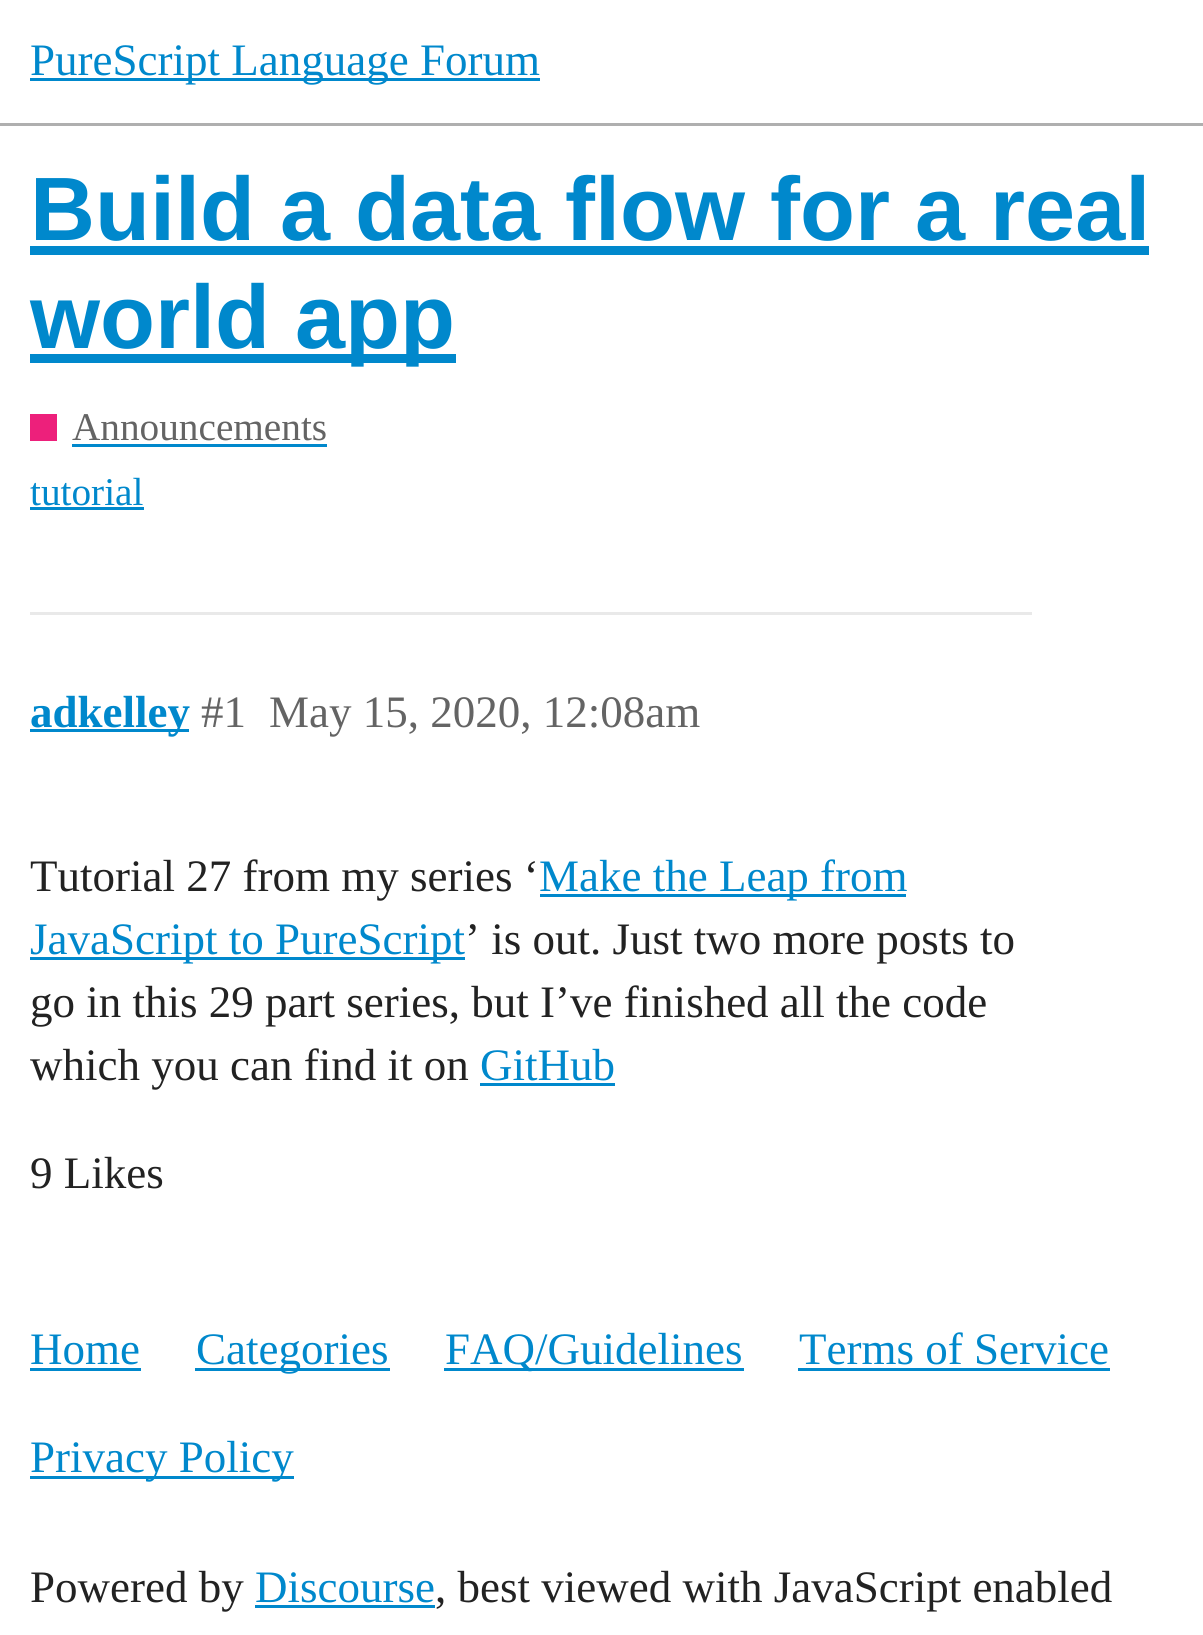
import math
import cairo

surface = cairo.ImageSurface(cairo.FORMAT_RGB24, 1203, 1635)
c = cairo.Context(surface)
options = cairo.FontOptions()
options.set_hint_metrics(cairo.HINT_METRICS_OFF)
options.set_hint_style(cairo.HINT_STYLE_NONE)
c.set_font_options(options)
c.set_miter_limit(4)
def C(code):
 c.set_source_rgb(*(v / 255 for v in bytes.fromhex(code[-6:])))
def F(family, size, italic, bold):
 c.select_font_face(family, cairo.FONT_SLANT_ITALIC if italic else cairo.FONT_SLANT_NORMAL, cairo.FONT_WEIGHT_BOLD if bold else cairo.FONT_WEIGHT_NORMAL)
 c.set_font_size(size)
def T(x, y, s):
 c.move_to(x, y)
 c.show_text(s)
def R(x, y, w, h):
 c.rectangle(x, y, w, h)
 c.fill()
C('ffffff')
c.paint()
C('afafaf')
R(0,123,1203,3)
C('0088cc')
R(30,78,510,3)
F('Liberation Serif',45,0,0)
T(30,75,'PureScript Language Forum')
F('Liberation Sans',90,0,1)
T(30,240,'Build a data flow for a real')
R(30,246,1119,9)
R(30,354,426,9)
T(30,348,'world app')
C('ed207b')
R(30,414,27,27)
F('Liberation Serif',39.25,0,0)
C('646464')
T(72,440,'Announcements')
C('0088cc')
R(72,444,255,3)
T(30,505,'tutorial')
R(30,507,114,3)
C('e9e9e9')
R(30,612,1002,3)
C('0088cc')
R(30,729,159,3)
F('Liberation Serif',45,0,1)
T(30,727,'adkelley')
F('Liberation Serif',45,0,0)
C('646464')
T(201,727,'#1')
T(269,727,'May 15, 2020, 12:08am')
C('222222')
T(30,891,'Tutorial 27 from my series ‘')
C('0088cc')
R(540,894,366,3)
T(539,891,'Make the Leap from')
R(30,957,435,3)
T(30,954,'JavaScript to PureScript')
C('222222')
T(465,954,'’ is out. Just two more posts to')
T(30,1017,'go in this 29 part series, but I’ve finished all the code')
T(30,1080,'which you can find it on')
C('0088cc')
T(480,1080,'GitHub')
R(480,1083,135,3)
C('222222')
T(30,1188,'9 Likes')
C('0088cc')
T(30,1364,'Home')
R(30,1368,111,3)
R(195,1368,195,3)
T(196,1364,'Categories')
R(444,1368,300,3)
T(445,1364,'FAQ/Guidelines')
T(799,1364,'Terms of Service')
R(798,1368,312,3)
R(30,1476,264,3)
T(30,1472,'Privacy Policy')
C('222222')
T(30,1602,'Powered by')
C('0088cc')
T(255,1602,'Discourse')
R(255,1605,180,3)
C('222222')
T(435,1602,', best viewed with JavaScript enabled')
surface.write_to_png('o.png')
